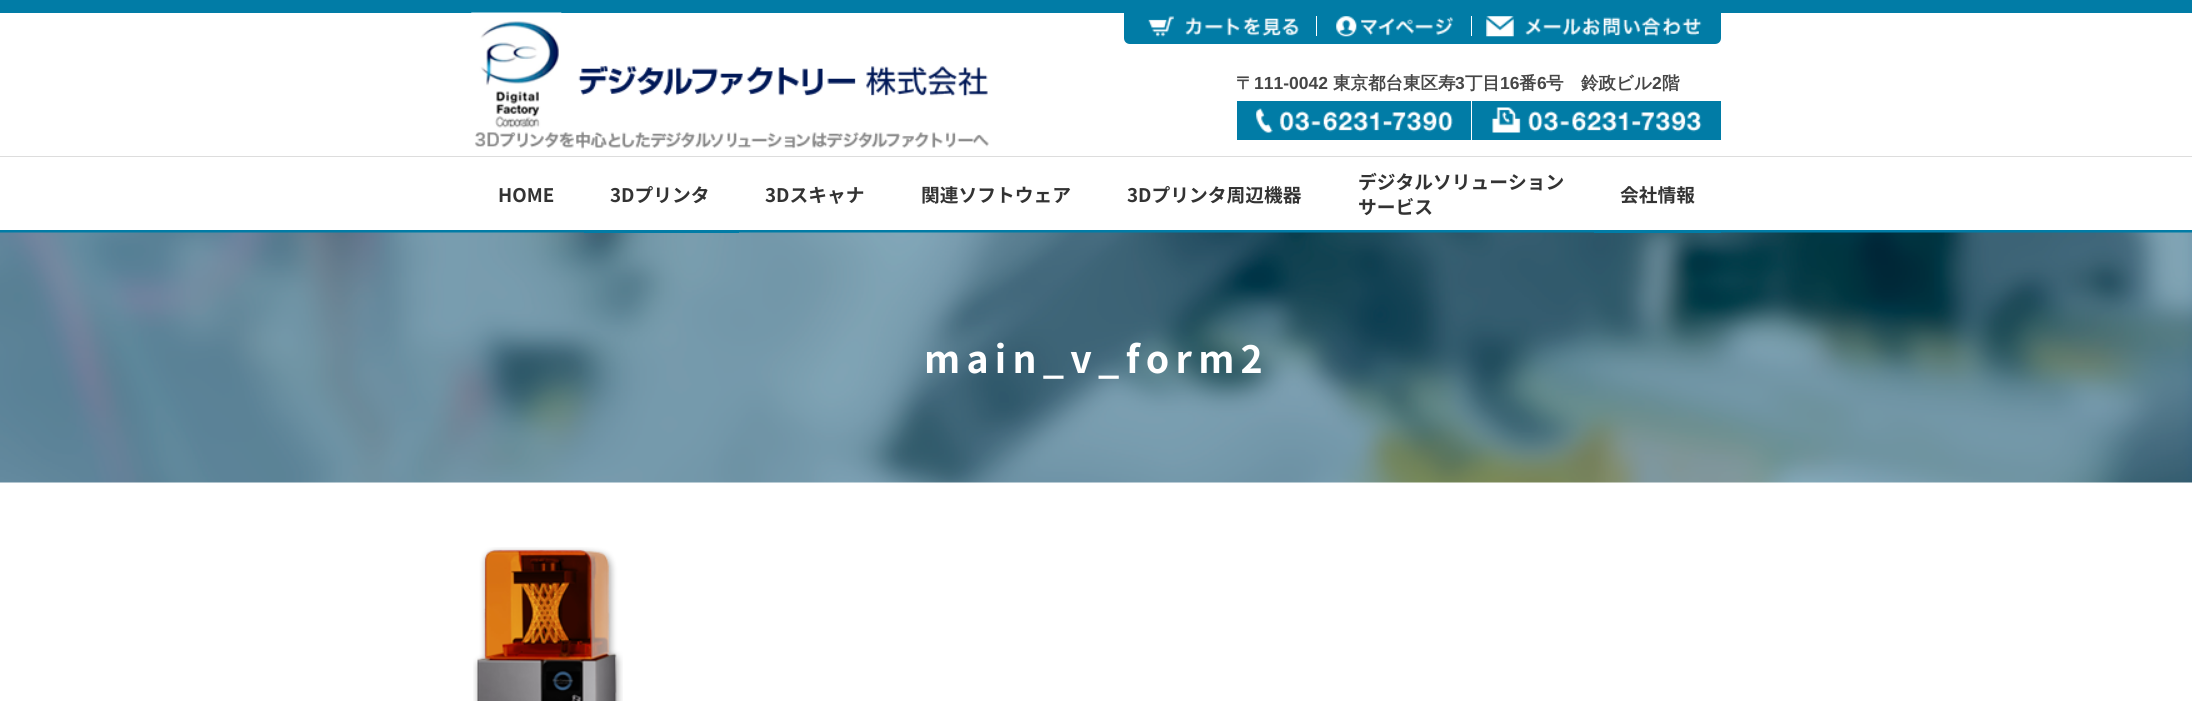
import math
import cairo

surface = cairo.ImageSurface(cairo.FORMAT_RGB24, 2192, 701)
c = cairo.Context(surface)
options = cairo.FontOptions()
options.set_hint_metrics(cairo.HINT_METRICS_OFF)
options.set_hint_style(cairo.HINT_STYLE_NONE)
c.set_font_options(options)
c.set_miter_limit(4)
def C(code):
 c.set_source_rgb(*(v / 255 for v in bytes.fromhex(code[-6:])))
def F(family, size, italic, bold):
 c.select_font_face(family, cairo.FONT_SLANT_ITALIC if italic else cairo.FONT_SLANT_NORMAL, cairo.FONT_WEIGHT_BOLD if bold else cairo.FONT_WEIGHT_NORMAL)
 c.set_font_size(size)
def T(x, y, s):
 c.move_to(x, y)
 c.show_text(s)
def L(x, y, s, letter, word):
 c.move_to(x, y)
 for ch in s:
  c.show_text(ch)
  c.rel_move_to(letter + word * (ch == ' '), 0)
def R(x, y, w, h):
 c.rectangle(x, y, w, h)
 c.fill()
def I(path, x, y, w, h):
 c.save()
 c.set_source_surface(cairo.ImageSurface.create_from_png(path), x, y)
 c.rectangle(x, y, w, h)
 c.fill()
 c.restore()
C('ffffff')
c.paint()
C('017ca6')
R(0,0,2192,13)
I('1.png',471,12,518,137)
c.new_path()
c.move_to(1124,13)
c.line_to(1721,13)
c.line_to(1721,38)
c.curve_to(1721,41.5,1718.5,44,1715,44)
c.line_to(1130,44)
c.curve_to(1126.5,44,1124,41.5,1124,38)
c.close_path()
c.fill()
I('2.png',1148,16,151,21)
C('ffffff')
R(1316,16,1,20)
I('3.png',1336,16,118,21)
R(1471,16,1,20)
I('4.png',1486,16,216,21)
F('WenQuanYi Zen Hei',17.5,0,1)
C('464646')
T(1236,89,'〒')
F('Liberation Sans',17.5,0,1)
T(1254,89,'111-0042')
F('WenQuanYi Zen Hei',17.5,0,1)
T(1333,89,'東京都台東区寿')
F('Liberation Sans',17.5,0,1)
T(1455,89,'3')
F('WenQuanYi Zen Hei',17.5,0,1)
T(1465,89,'丁目')
F('Liberation Sans',17.5,0,1)
T(1500,89,'16')
F('WenQuanYi Zen Hei',17.5,0,1)
T(1519,89,'番')
F('Liberation Sans',17.5,0,1)
T(1537,89,'6')
F('WenQuanYi Zen Hei',17.5,0,1)
T(1546,89,'号　鈴政ビル')
F('Liberation Sans',17.5,0,1)
T(1652,89,'2')
F('WenQuanYi Zen Hei',17.5,0,1)
T(1662,89,'階')
C('017ca6')
R(1237,101,234,39)
I('5.png',1256,108,197,25)
R(1472,101,249,39)
I('6.png',1492,107,210,26)
C('dddddd')
R(0,156,2192,1)
C('017ca6')
R(0,230,2192,3)
F('Noto Sans JP',18.75,0,1)
C('333333')
T(498,202,'HOME')
T(610,202,'3Dプリンタ')
I('7.png',0,232,2192,251)
C('017ca6')
R(584,232,155,1)
C('333333')
T(765,202,'3Dスキャナ')
T(921,202,'関連ソフトウェア')
T(1127,202,'3Dプリンタ周辺機器')
T(1358,189,'デジタルソリューション')
T(1358,214,'サービス')
T(1620,202,'会社情報')
C('017ca6')
R(1594,232,127,1)
F('Noto Sans JP',37.5,0,1)
C('ffffff')
L(924,373,'main_v_form2',6.25,0)
I('8.png',473,547,150,154)
surface.write_to_png('o.png')
